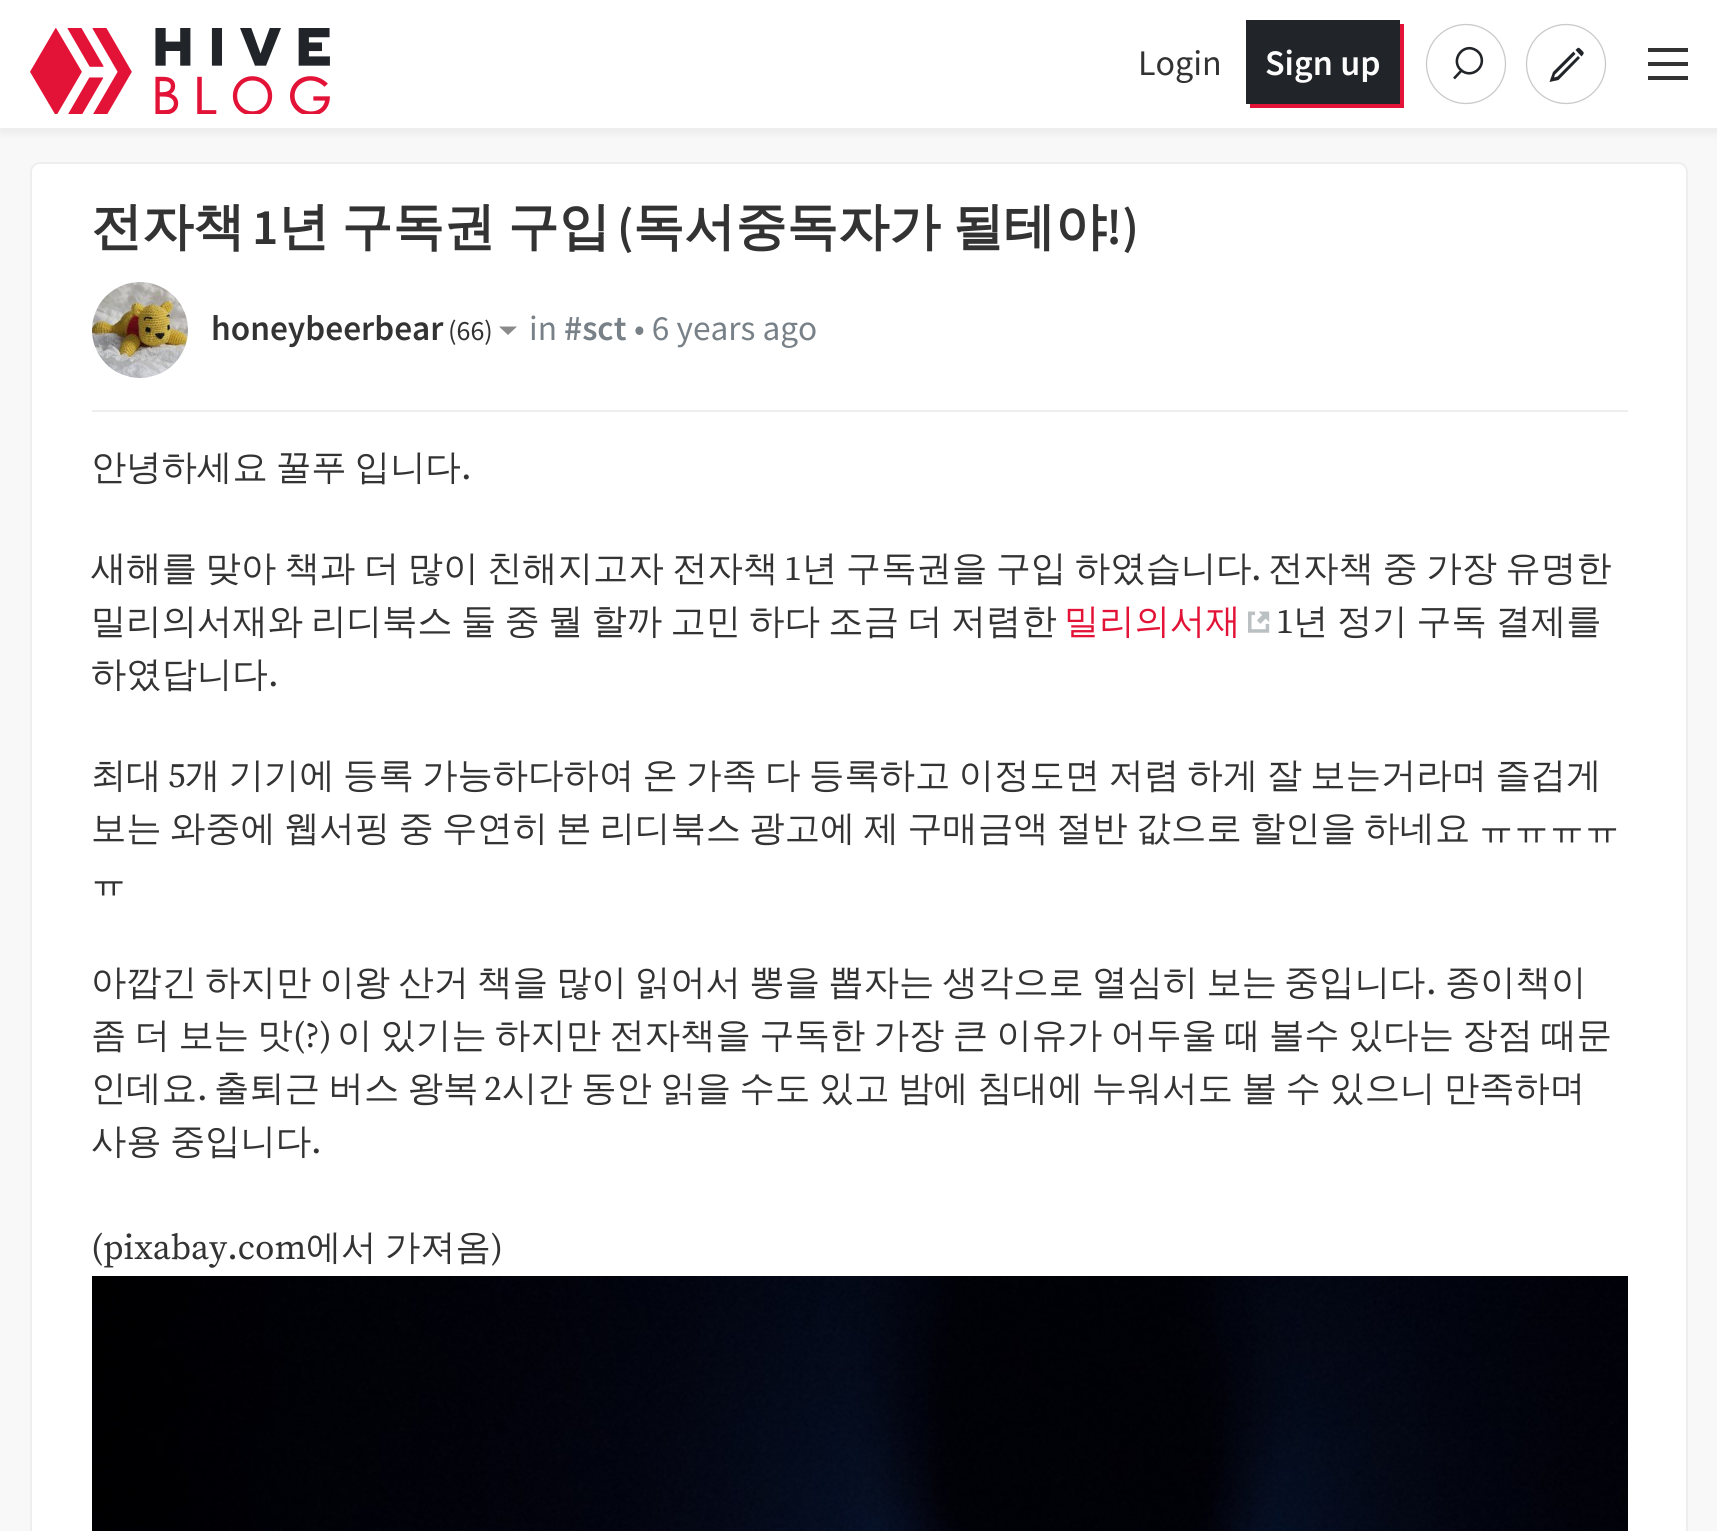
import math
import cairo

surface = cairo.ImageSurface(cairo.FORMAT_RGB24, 1717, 1531)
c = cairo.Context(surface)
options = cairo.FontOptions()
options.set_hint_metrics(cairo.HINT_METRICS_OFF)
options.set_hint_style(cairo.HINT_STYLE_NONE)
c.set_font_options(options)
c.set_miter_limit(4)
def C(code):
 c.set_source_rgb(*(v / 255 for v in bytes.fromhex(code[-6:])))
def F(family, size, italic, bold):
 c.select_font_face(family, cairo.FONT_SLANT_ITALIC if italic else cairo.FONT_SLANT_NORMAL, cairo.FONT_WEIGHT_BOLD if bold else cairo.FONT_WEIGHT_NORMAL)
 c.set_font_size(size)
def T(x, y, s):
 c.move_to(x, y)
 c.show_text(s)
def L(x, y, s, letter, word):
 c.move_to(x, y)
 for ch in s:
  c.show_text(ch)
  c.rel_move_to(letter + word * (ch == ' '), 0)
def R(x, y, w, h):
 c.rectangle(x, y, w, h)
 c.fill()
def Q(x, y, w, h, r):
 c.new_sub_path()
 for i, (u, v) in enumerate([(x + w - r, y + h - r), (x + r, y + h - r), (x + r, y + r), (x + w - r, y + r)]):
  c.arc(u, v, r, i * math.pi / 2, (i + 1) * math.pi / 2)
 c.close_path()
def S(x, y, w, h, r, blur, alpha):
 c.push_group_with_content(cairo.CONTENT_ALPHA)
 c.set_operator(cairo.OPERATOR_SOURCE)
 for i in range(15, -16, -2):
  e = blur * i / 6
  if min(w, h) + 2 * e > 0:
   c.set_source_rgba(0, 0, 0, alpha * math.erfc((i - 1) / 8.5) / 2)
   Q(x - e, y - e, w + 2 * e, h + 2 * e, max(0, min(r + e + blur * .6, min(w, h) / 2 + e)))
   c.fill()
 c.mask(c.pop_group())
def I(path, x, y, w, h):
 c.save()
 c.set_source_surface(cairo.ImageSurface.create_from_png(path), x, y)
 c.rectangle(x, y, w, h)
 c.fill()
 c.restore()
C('f8f8f8')
c.paint()
C('000000')
S(0,4,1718,130,0,4,.05)
C('ffffff')
R(0,0,1717,128)
C('eeeeee')
R(0,128,1717,2)
I('1.png',30,28,300,86)
F('Source Sans Pro',36,0,0)
C('333333')
T(1138,75,'Login')
C('e31337')
c.new_path()
c.move_to(1250,104)
c.line_to(1250,108)
c.line_to(1404,108)
c.line_to(1404,24)
c.line_to(1400,24)
c.line_to(1400,104)
c.close_path()
c.fill()
C('212529')
R(1246,20,154,84)
F('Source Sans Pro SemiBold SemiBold',36,0,0)
C('fcfcfc')
T(1265,75,'Sign up')
c.new_path()
c.arc(1466,64,39.5,0,2 * math.pi)
C('cacaca')
c.set_line_width(1.3)
c.stroke()
c.new_path()
c.move_to(1461.5,70.5)
c.line_to(1454,78.5)
c.line_to(1461.5,70.5)
c.curve_to(1449.5,61,1463,41.5,1476.5,50.5)
c.curve_to(1478.5,52,1480,53.5,1481,56)
c.curve_to(1485.5,68,1471.5,78.5,1461.5,70.5)
c.close_path()
C('212529')
c.set_line_width(2.6)
c.stroke()
c.arc(1566,64,39.5,0,2 * math.pi)
C('cacaca')
c.set_line_width(1.3)
c.stroke()
C('212529')
c.set_fill_rule(cairo.FILL_RULE_EVEN_ODD)
c.new_path()
c.move_to(1575.5,50)
c.line_to(1581.5,56.5)
c.curve_to(1584.5,53,1584.5,53,1581.5,50)
c.curve_to(1578.5,47,1578.5,47,1575.5,50)
c.close_path()
c.move_to(1573.5,51.5)
c.line_to(1553,72)
c.line_to(1549.5,82)
c.line_to(1558.5,80)
c.line_to(1580,58)
c.line_to(1578,56)
c.line_to(1557.5,76.5)
c.line_to(1554,77.5)
c.line_to(1555,74.5)
c.line_to(1575.5,54)
c.close_path()
c.fill()
C('333333')
R(1648,76,40,4)
R(1648,62,40,4)
R(1648,48,40,4)
C('ffffff')
Q(31,163,1656,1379,9)
c.fill_preserve()
C('eeeeee')
c.set_line_width(2)
c.stroke()
R(92,410,1536,2)
F('WenQuanYi Zen Hei',51.25,0,1)
C('333333')
T(91,244,'전자책')
F('Source Sans Pro SemiBold SemiBold',51.25,0,0)
T(252,244,'1')
F('WenQuanYi Zen Hei',51.25,0,1)
L(278,244,'년 구독권 구입',0,-3)
F('Source Sans Pro SemiBold SemiBold',51.25,0,0)
T(617,244,'(')
F('WenQuanYi Zen Hei',51.25,0,1)
L(633,244,'독서중독자가 될테야',0,-3)
F('Source Sans Pro SemiBold SemiBold',51.25,0,0)
T(1106,244,'!)')
I('2.png',92,282,96,96)
F('Source Sans Pro SemiBold SemiBold',35.35,0,0)
T(211,340,'honeybeerbear')
F('Source Sans Pro',28,0,0)
T(448,340,'(66)')
C('8a8a8a')
c.set_fill_rule(cairo.FILL_RULE_WINDING)
c.new_path()
c.move_to(499,326.5)
c.line_to(508,335)
c.line_to(517,326.5)
c.close_path()
c.fill()
F('Source Sans Pro',35.35,0,0)
C('788187')
T(529,340,'in')
F('Source Sans Pro SemiBold SemiBold',35.35,0,0)
T(564,340,'#sct')
F('Source Sans Pro',35.35,0,0)
T(634,340,'• 6 years ago')
F('WenQuanYi Zen Hei Medium',35.35,0,0)
C('333333')
L(91,479,'안녕하세요 꿀푸 입니다',0,-2.4)
F('Source Serif Pro',35.35,0,0)
T(461,479,'.')
F('WenQuanYi Zen Hei Medium',35.35,0,0)
L(91,580,'새해를 맞아 책과 더 많이 친해지고자 전자책',0,-2.1)
F('Source Serif Pro',35.35,0,0)
T(784,580,'1')
F('WenQuanYi Zen Hei Medium',35.35,0,0)
L(802,580,'년 구독권을 구입 하였습니다',0,-2.1)
F('Source Serif Pro',35.35,0,0)
T(1251,580,'.')
F('WenQuanYi Zen Hei Medium',35.35,0,0)
L(1268,580,'전자책 중 가장 유명한',0,-2.1)
L(91,633,'밀리의서재와 리디북스 둘 중 뭘 할까 고민 하다 조금 더 저렴한',0,-2.4)
C('e31337')
T(1064,633,'밀리의서재')
I('3.png',1248,611,22,22)
F('Source Serif Pro',35.35,0,0)
C('333333')
T(1276,633,'1')
F('WenQuanYi Zen Hei Medium',35.35,0,0)
L(1293,633,'년 정기 구독 결제를',0,-2)
T(91,686,'하였답니다')
F('Source Serif Pro',35.35,0,0)
T(268,686,'.')
F('WenQuanYi Zen Hei Medium',35.35,0,0)
T(91,787,'최대')
F('Source Serif Pro',35.35,0,0)
T(168,787,'5')
F('WenQuanYi Zen Hei Medium',35.35,0,0)
L(185,787,'개 기기에 등록 가능하다하여 온 가족 다 등록하고 이정도면 저렴 하게 잘 보는거라며 즐겁게',0,-2.25)
L(91,840,'보는 와중에 웹서핑 중 우연히 본 리디북스 광고에 제 구매금액 절반 값으로 할인을 하네요 ㅠㅠㅠㅠ',0,-2.4)
T(91,893,'ㅠ')
L(91,994,'아깝긴 하지만 이왕 산거 책을 많이 읽어서 뽕을 뽑자는 생각으로 열심히 보는',0,-2.4)
T(1284,994,'중입니다')
F('Source Serif Pro',35.35,0,0)
T(1426,994,'.')
F('WenQuanYi Zen Hei Medium',35.35,0,0)
T(1445,994,'종이책이')
L(91,1047,'좀 더 보는 맛',0,-2.25)
F('Source Serif Pro',35.35,0,0)
T(293,1047,'(?)')
F('WenQuanYi Zen Hei Medium',35.35,0,0)
L(337,1047,'이 있기는 하지만 전자책을 구독한 가장 큰 이유가 어두울 때 볼수 있다는 장점 때문',0,-2.25)
T(91,1100,'인데요')
F('Source Serif Pro',35.35,0,0)
T(197,1100,'.')
F('WenQuanYi Zen Hei Medium',35.35,0,0)
L(214,1100,'출퇴근 버스 왕복',0,-2.1)
F('Source Serif Pro',35.35,0,0)
T(484,1100,'2')
F('WenQuanYi Zen Hei Medium',35.35,0,0)
L(502,1100,'시간 동안 읽을 수도 있고 밤에 침대에 누워서도 볼 수 있으니 만족하며',0,-2.1)
L(91,1153,'사용 중입니다',0,-2.4)
F('Source Serif Pro',35.35,0,0)
T(311,1153,'.')
T(91,1259,'(pixabay.com')
F('WenQuanYi Zen Hei Medium',35.35,0,0)
L(306,1259,'에서 가져옴',0,-2.4)
F('Source Serif Pro',35.35,0,0)
T(491,1259,')')
I('4.png',92,1276,1536,255)
surface.write_to_png('o.png')
